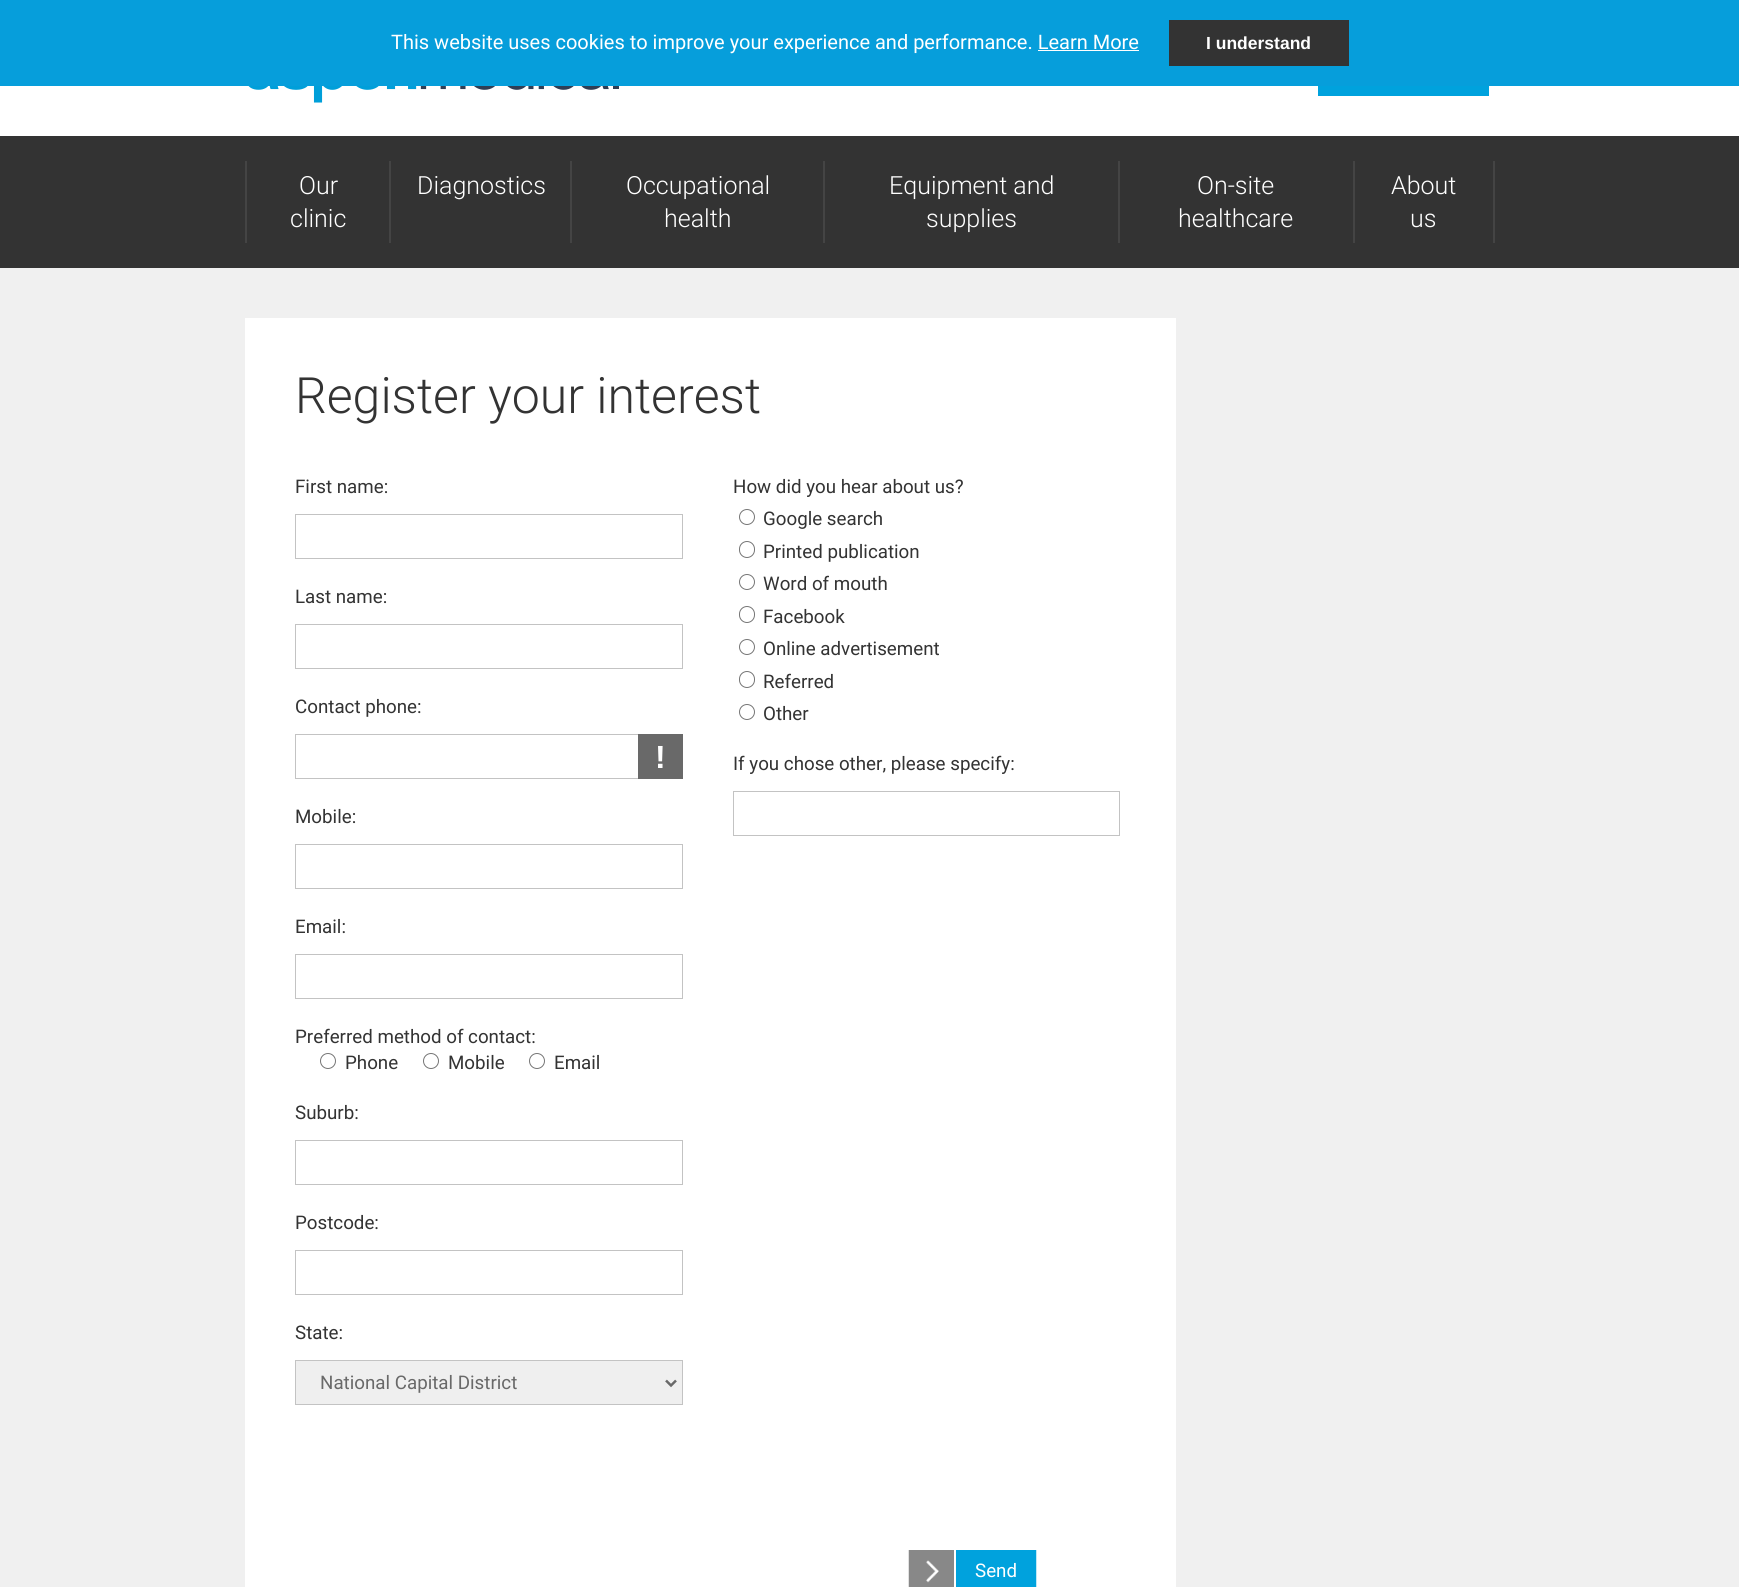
import math
import cairo

surface = cairo.ImageSurface(cairo.FORMAT_RGB24, 1739, 1587)
c = cairo.Context(surface)
options = cairo.FontOptions()
options.set_hint_metrics(cairo.HINT_METRICS_OFF)
options.set_hint_style(cairo.HINT_STYLE_NONE)
c.set_font_options(options)
c.set_miter_limit(4)
def C(code):
 c.set_source_rgb(*(v / 255 for v in bytes.fromhex(code[-6:])))
def F(family, size, italic, bold):
 c.select_font_face(family, cairo.FONT_SLANT_ITALIC if italic else cairo.FONT_SLANT_NORMAL, cairo.FONT_WEIGHT_BOLD if bold else cairo.FONT_WEIGHT_NORMAL)
 c.set_font_size(size)
def T(x, y, s):
 c.move_to(x, y)
 c.show_text(s)
def R(x, y, w, h):
 c.rectangle(x, y, w, h)
 c.fill()
def Q(x, y, w, h, r):
 c.new_sub_path()
 for i, (u, v) in enumerate([(x + w - r, y + h - r), (x + r, y + h - r), (x + r, y + r), (x + w - r, y + r)]):
  c.arc(u, v, r, i * math.pi / 2, (i + 1) * math.pi / 2)
 c.close_path()
def I(path, x, y, w, h):
 c.save()
 c.set_source_surface(cairo.ImageSurface.create_from_png(path), x, y)
 c.rectangle(x, y, w, h)
 c.fill()
 c.restore()
C('ffffff')
c.paint()
C('069edb')
R(0,0,1739,86)
F('Roboto',20,0,0)
C('ffffff')
T(391,49,'This website uses cookies to improve your experience and performance. Learn More')
C('333333')
R(1169,20,180,46)
F('Liberation Sans',17.5,0,1)
C('ffffff')
T(1206,49,'I understand')
R(1038,50,101,1)
I('1.png',248,86,371,17)
C('00a2dd')
R(1318,86,171,10)
C('333333')
R(0,136,1739,132)
C('444444')
R(1493,161,2,82)
R(245,161,2,82)
R(389,161,2,82)
F('Roboto Light',25,0,0)
C('ffffff')
T(299,194,'Our')
T(290,227,'clinic')
C('444444')
R(570,161,2,82)
C('ffffff')
T(417,194,'Diagnostics')
C('444444')
R(823,161,2,82)
C('ffffff')
T(626,194,'Occupational')
T(664,227,'health')
C('444444')
R(1118,161,2,82)
C('ffffff')
T(889,194,'Equipment and')
T(926,227,'supplies')
C('444444')
R(1353,161,2,82)
C('ffffff')
T(1197,194,'On-site')
T(1178,227,'healthcare')
T(1391,194,'About')
T(1410,227,'us')
C('f0f0f0')
R(0,268,1739,1319)
C('ffffff')
R(245,318,931,1269)
F('Roboto Light',50,0,0)
C('333333')
T(295,413,'Register your interest')
F('Roboto',18.75,0,0)
T(295,493,'First name:')
c.rectangle(295.5,514.5,387,44)
C('c3c3c3')
c.set_line_width(1)
c.stroke()
C('333333')
T(295,603,'Last name:')
c.rectangle(295.5,624.5,387,44)
C('c3c3c3')
c.stroke()
C('333333')
T(295,713,'Contact phone:')
C('c3c3c3')
R(295,734,343,1)
R(295,778,343,1)
R(295,734,1,45)
C('696969')
R(638,734,45,45)
F('Liberation Sans',32,0,1)
C('ffffff')
T(655,768,'!')
F('Roboto',18.75,0,0)
C('333333')
T(295,823,'Mobile:')
c.rectangle(295.5,844.5,387,44)
C('c3c3c3')
c.stroke()
C('333333')
T(295,933,'Email:')
c.rectangle(295.5,954.5,387,44)
C('c3c3c3')
c.stroke()
C('333333')
T(295,1043,'Preferred method of contact:')
c.new_path()
c.arc(328,1061,7.5,0,2 * math.pi)
C('767676')
c.stroke()
C('333333')
T(345,1069,'Phone')
c.new_path()
c.arc(431,1061,7.5,0,2 * math.pi)
C('767676')
c.stroke()
C('333333')
T(448,1069,'Mobile')
c.new_path()
c.arc(537,1061,7.5,0,2 * math.pi)
C('767676')
c.stroke()
C('333333')
T(554,1069,'Email')
T(295,1119,'Suburb:')
c.rectangle(295.5,1140.5,387,44)
C('c3c3c3')
c.stroke()
C('333333')
T(295,1229,'Postcode:')
c.rectangle(295.5,1250.5,387,44)
C('c3c3c3')
c.stroke()
C('333333')
T(295,1339,'State:')
C('efefef')
c.rectangle(295.5,1360.5,387,44)
c.fill_preserve()
C('c3c3c3')
c.stroke()
c.new_path()
c.move_to(666,1380.5)
c.line_to(671,1385.5)
c.line_to(676,1380.5)
C('696969')
c.set_line_width(2.5)
c.stroke()
T(320,1389,'National Capital District')
C('333333')
T(733,493,'How did you hear about us?')
c.new_path()
c.arc(747,517,7.5,0,2 * math.pi)
C('767676')
c.set_line_width(1)
c.stroke()
C('333333')
T(763,525,'Google search')
Q(739.5,541.5,15,16,7.5)
C('767676')
c.stroke()
C('333333')
T(763,558,'Printed publication')
c.new_path()
c.arc(747,582,7.5,0,2 * math.pi)
C('767676')
c.stroke()
C('333333')
T(763,590,'Word of mouth')
Q(739.5,606.5,15,16,7.5)
C('767676')
c.stroke()
C('333333')
T(763,623,'Facebook')
c.new_path()
c.arc(747,647,7.5,0,2 * math.pi)
C('767676')
c.stroke()
C('333333')
T(763,655,'Online advertisement')
Q(739.5,671.5,15,16,7.5)
C('767676')
c.stroke()
C('333333')
T(763,688,'Referred')
c.new_path()
c.arc(747,712,7.5,0,2 * math.pi)
C('767676')
c.stroke()
C('333333')
T(763,720,'Other')
T(733,770,'If you chose other, please specify:')
c.rectangle(733.5,791.5,386,44)
C('c3c3c3')
c.stroke()
I('2.png',908,1550,129,37)
C('ffffff')
T(975,1577,'Send')
surface.write_to_png('o.png')
